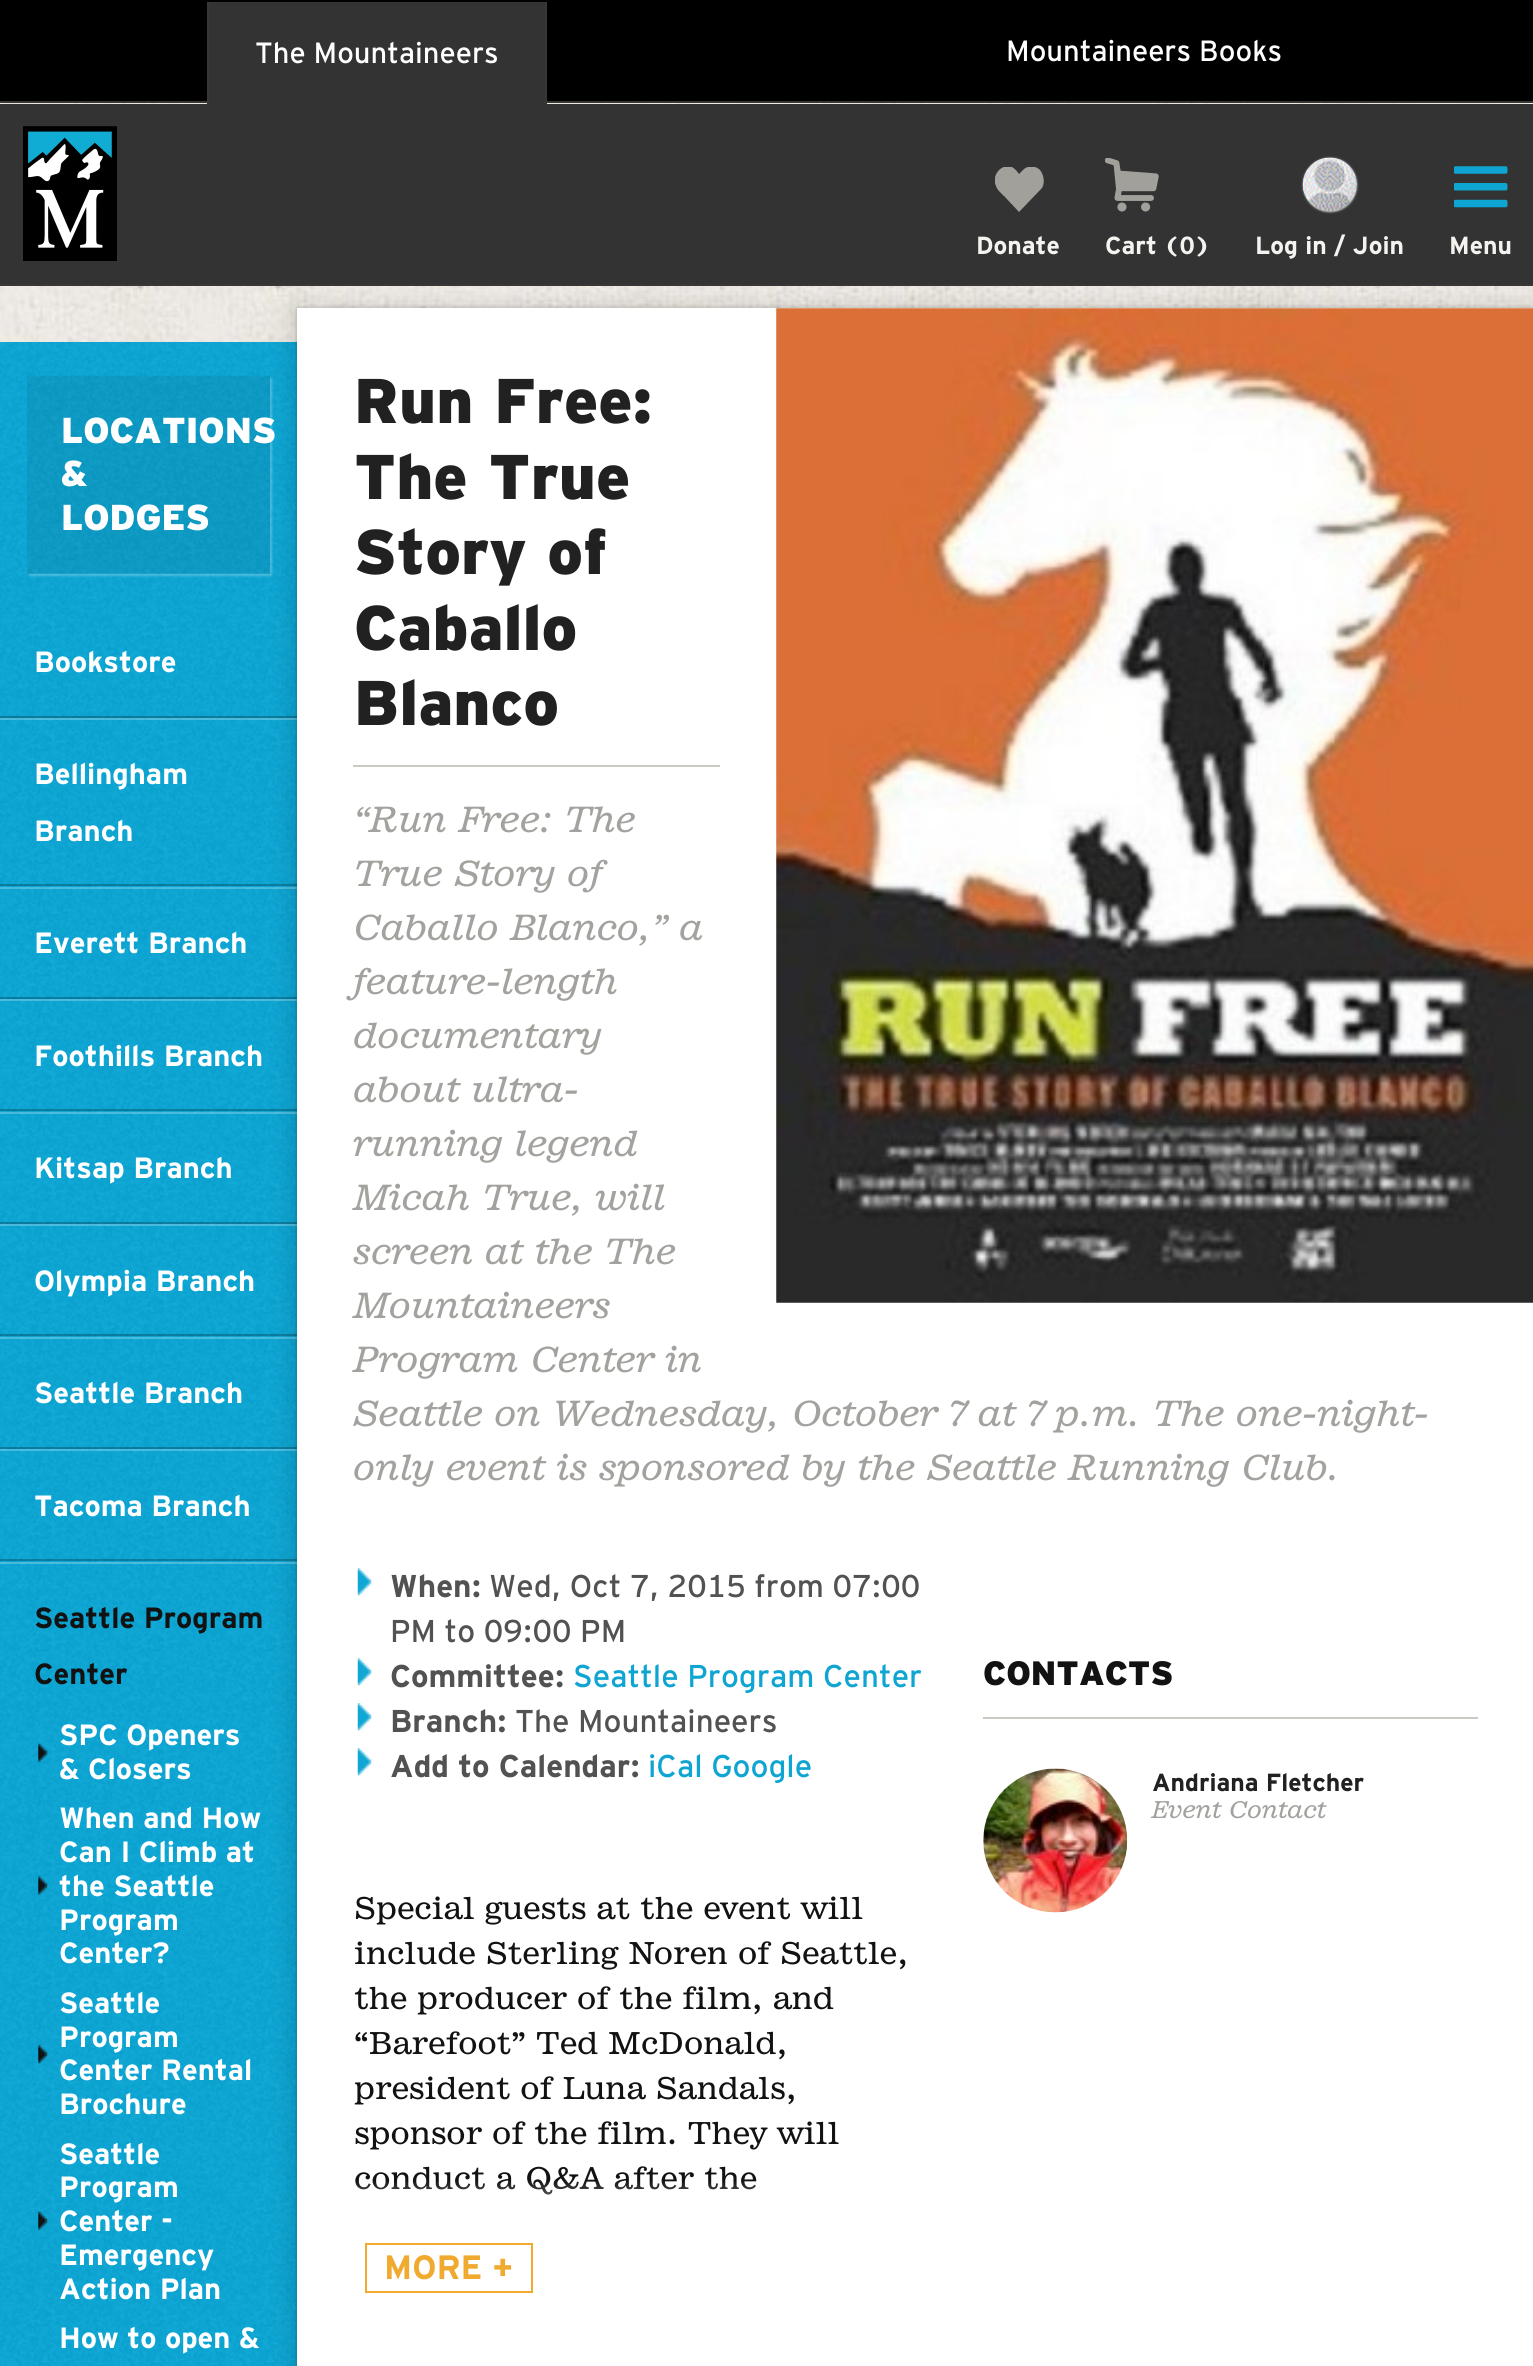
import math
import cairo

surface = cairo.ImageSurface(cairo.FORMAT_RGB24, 1533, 2366)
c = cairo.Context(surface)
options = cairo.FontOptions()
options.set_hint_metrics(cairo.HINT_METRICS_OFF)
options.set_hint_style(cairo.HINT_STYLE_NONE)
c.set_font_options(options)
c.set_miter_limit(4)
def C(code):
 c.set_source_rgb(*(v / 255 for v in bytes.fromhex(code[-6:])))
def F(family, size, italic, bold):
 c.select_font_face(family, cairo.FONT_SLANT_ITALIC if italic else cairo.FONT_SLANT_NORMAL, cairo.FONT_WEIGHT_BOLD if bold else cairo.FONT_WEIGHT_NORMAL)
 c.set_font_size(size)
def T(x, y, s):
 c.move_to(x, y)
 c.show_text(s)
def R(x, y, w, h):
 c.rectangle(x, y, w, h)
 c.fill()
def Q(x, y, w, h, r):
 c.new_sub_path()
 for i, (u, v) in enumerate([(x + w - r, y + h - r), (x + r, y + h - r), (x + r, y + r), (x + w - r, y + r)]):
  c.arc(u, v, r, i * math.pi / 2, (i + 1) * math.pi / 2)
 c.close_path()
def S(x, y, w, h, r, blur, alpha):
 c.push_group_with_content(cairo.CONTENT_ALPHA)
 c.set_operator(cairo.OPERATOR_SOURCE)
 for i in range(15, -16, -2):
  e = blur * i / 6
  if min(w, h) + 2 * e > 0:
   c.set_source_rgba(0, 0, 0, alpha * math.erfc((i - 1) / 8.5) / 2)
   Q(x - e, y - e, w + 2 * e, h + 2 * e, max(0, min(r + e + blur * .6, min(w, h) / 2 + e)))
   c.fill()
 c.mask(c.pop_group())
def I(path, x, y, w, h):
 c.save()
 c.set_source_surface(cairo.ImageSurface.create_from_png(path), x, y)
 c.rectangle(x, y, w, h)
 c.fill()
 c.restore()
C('ffffff')
c.paint()
I('1.png',0,103,1533,239)
C('000000')
R(0,0,1533,101)
C('383736')
R(0,101,1533,2)
C('333333')
R(209,2,336,102)
C('383736')
R(545,2,2,102)
R(207,2,2,102)
F('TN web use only',29.25,0,0)
C('ffffff')
T(255,63,'The Mountaineers')
T(1006,61,'Mountaineers Books')
C('333333')
R(0,104,1533,180)
C('383736')
R(0,284,1533,2)
I('2.png',23,126,94,135)
c.save()
c.rectangle(995,167,49,45)
c.clip()
C('a2a09b')
c.new_path()
c.move_to(1040,170)
c.curve_to(1044,175,1045,183,1042,188)
c.line_to(1019,212)
c.line_to(1005,197)
c.curve_to(1002,194,997,190,996,186)
c.curve_to(991,176,1001,163,1012,167)
c.curve_to(1015,169,1017,171,1019,174)
c.line_to(1024,169)
c.curve_to(1029,165,1036,166,1040,170)
c.close_path()
c.fill()
c.restore()
F('TN web use only',24.75,0,1)
C('f4f3ef')
T(976,254,'Donate')
I('3.png',1105,158,54,54)
T(1105,254,'Cart (0)')
C('cccccc')
S(1303,158,54,54,27,1,1)
I('4.png',1302,157,55,55)
C('f4f3ef')
T(1255,254,'Log in / Join')
I('5.png',1454,166,54,42)
T(1449,254,'Menu')
I('6.png',0,342,297,2024)
C('ffffff')
S(29,378,243,198,0,1,.25)
I('7.png',27,375,243,199)
F('TN web use only Black',36,0,0)
C('ffffff')
T(61,443,'LOCATIONS')
T(61,486,'&')
T(61,530,'LODGES')
c.set_source_rgba(0,0,0,0.25)
R(0,716,297,2)
c.set_source_rgba(1,1,1,0.25)
R(0,718,297,2)
F('TN web use only',29.25,0,1)
C('ffffff')
T(34,672,'Bookstore')
c.set_source_rgba(0,0,0,0.25)
R(0,884,297,2)
c.set_source_rgba(1,1,1,0.25)
R(0,887,297,2)
C('ffffff')
T(34,784,'Bellingham')
T(34,841,'Branch')
c.set_source_rgba(0,0,0,0.25)
R(0,997,297,2)
c.set_source_rgba(1,1,1,0.25)
R(0,999,297,2)
C('ffffff')
T(34,953,'Everett Branch')
c.set_source_rgba(0,0,0,0.25)
R(0,1109,297,2)
c.set_source_rgba(1,1,1,0.25)
R(0,1112,297,2)
C('ffffff')
T(34,1066,'Foothills Branch')
c.set_source_rgba(0,0,0,0.25)
R(0,1222,297,2)
c.set_source_rgba(1,1,1,0.25)
R(0,1224,297,2)
C('ffffff')
T(34,1178,'Kitsap Branch')
c.set_source_rgba(0,0,0,0.25)
R(0,1334,297,2)
c.set_source_rgba(1,1,1,0.25)
R(0,1337,297,2)
C('ffffff')
T(34,1291,'Olympia Branch')
c.set_source_rgba(0,0,0,0.25)
R(0,1447,297,2)
c.set_source_rgba(1,1,1,0.25)
R(0,1449,297,2)
C('ffffff')
T(34,1403,'Seattle Branch')
c.set_source_rgba(0,0,0,0.25)
R(0,1559,297,2)
c.set_source_rgba(1,1,1,0.25)
R(0,1562,297,2)
C('ffffff')
T(34,1516,'Tacoma Branch')
C('121212')
T(34,1628,'Seattle Program')
T(34,1684,'Center')
I('8.png',38,1743,10,19)
C('ffffff')
T(59,1745,'SPC Openers')
T(59,1779,'& Closers')
I('9.png',38,1876,10,19)
T(59,1828,'When and How')
T(59,1862,'Can I Climb at')
T(59,1896,'the Seattle')
T(59,1930,'Program')
T(59,1963,'Center?')
I('10.png',38,2045,10,19)
T(59,2013,'Seattle')
T(59,2047,'Program')
T(59,2080,'Center Rental')
T(59,2114,'Brochure')
I('11.png',38,2211,10,19)
T(59,2164,'Seattle')
T(59,2197,'Program')
T(59,2231,'Center -')
T(59,2265,'Emergency')
T(59,2299,'Action Plan')
T(59,2348,'How to open &')
C('000000')
S(297,311,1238,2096,0,13.5,.2)
S(297,308,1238,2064,0,2,.2)
C('ffffff')
R(297,308,1236,2058)
I('12.png',776,308,757,995)
C('ccc9c2')
R(353,765,367,2)
F('TN web use only Black',63,0,0)
C('212121')
T(354,423,'Run Free:')
T(354,499,'The True')
T(354,574,'Story of')
T(354,650,'Caballo')
T(354,725,'Blanco')
F('TN web use only',33.75,1,0)
C('a4a29e')
T(354,832,'“Run Free: The')
T(354,886,'True Story of')
T(354,940,'Caballo Blanco,” a')
T(354,994,'feature-length')
T(354,1048,'documentary')
T(354,1102,'about ultra-')
T(354,1156,'running legend')
T(354,1210,'Micah True, will')
T(354,1264,'screen at the The')
T(354,1318,'Mountaineers')
T(354,1372,'Program Center in')
T(354,1426,'Seattle on Wednesday, October 7 at 7 p.m. The one-night-')
T(354,1480,'only event is sponsored by the Seattle Running Club.')
I('13.png',357,1568,15,28)
F('TN web use only',31.5,0,1)
C('525252')
T(390,1597,'When:')
F('TN web use only',31.5,0,0)
T(489,1597,'Wed, Oct 7, 2015 from 07:00')
T(390,1642,'PM to 09:00 PM')
I('14.png',357,1658,15,28)
F('TN web use only',31.5,0,1)
T(390,1687,'Committee:')
F('TN web use only',31.5,0,0)
C('0ea5d2')
T(573,1687,'Seattle Program Center')
I('13.png',357,1703,15,28)
F('TN web use only',31.5,0,1)
C('525252')
T(390,1732,'Branch:')
F('TN web use only',31.5,0,0)
T(515,1732,'The Mountaineers')
I('13.png',357,1748,15,28)
F('TN web use only',31.5,0,1)
T(390,1777,'Add to Calendar:')
F('TN web use only',31.5,0,0)
C('0ea5d2')
T(648,1777,'iCal Google')
F('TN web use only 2',29.25,0,0)
C('121212')
T(354,1919,'Special guests at the event will')
T(354,1964,'include Sterling Noren of Seattle,')
T(354,2009,'the producer of the film, and')
T(354,2054,'“Barefoot” Ted McDonald,')
T(354,2099,'president of Luna Sandals,')
T(354,2144,'sponsor of the film. They will')
T(354,2189,'conduct a Q&A after the')
gradient = cairo.LinearGradient(640,2180,640,2293)
gradient.add_color_stop_rgba(0,1,1,1,0)
gradient.add_color_stop_rgba(.5,1,1,1,1)
c.set_source(gradient)
R(355,2181,401,14)
c.rectangle(366,2244,166,48)
C('f1aa30')
c.stroke()
F('TN web use only',33.75,0,1)
T(384,2279,'MORE +')
C('ccc9c2')
R(983,1717,495,2)
F('TN web use only Black',33.75,0,0)
C('121212')
T(983,1685,'CONTACTS')
I('15.png',983,1768,145,145)
F('TN web use only',24.75,0,1)
C('212121')
T(1152,1791,'Andriana Fletcher')
F('TN web use only',22.5,1,0)
C('a4a29e')
T(1152,1818,'Event Contact')
surface.write_to_png('o.png')
